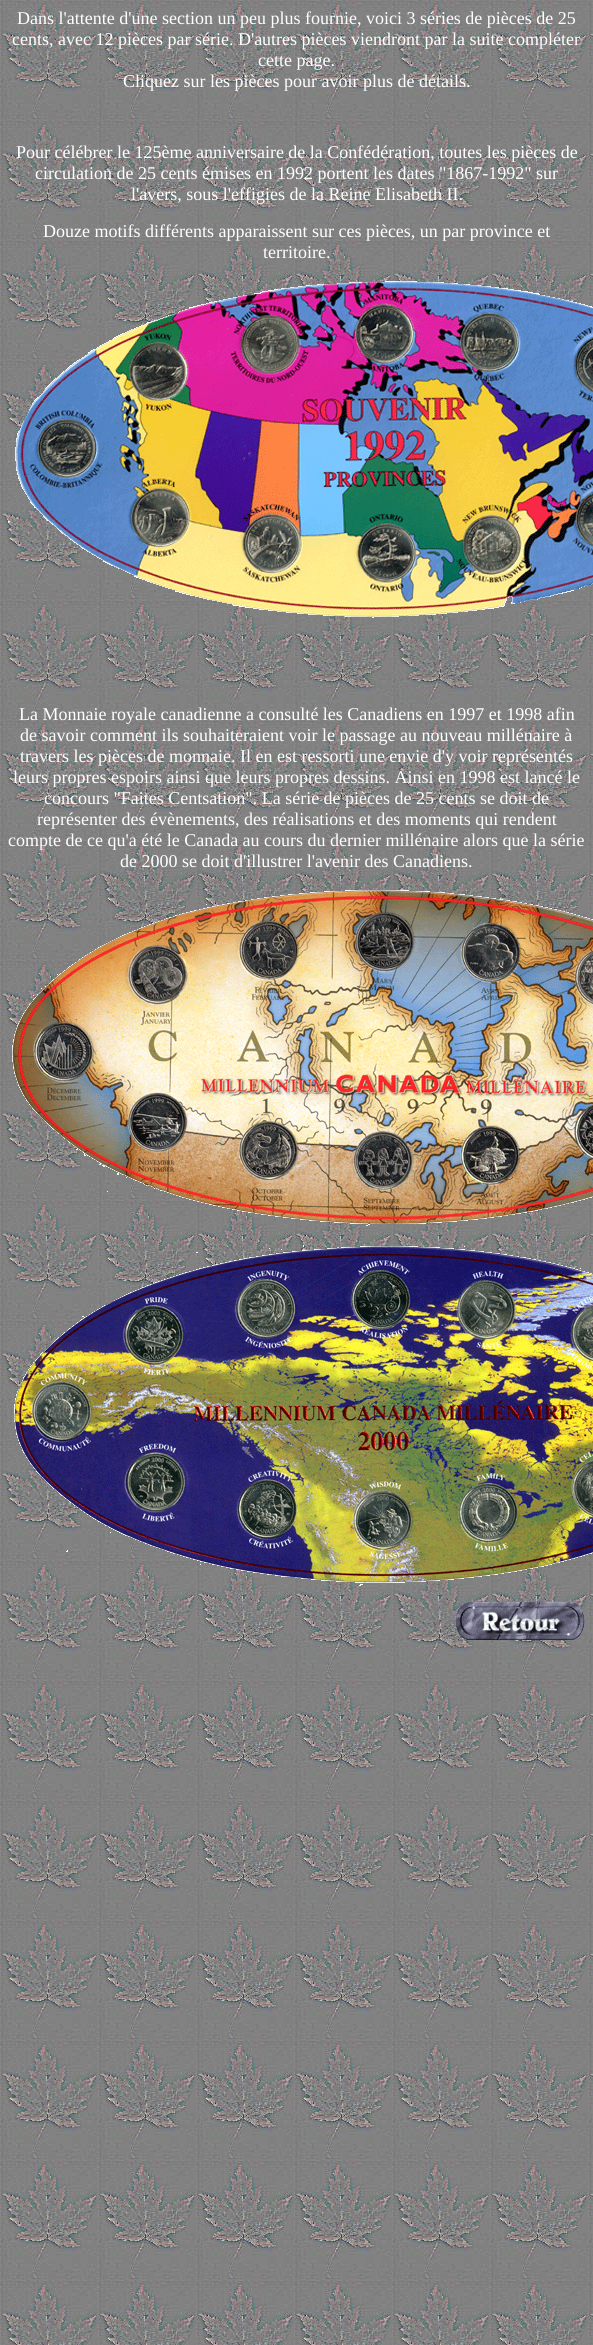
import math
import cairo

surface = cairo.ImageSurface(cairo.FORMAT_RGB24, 593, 2345)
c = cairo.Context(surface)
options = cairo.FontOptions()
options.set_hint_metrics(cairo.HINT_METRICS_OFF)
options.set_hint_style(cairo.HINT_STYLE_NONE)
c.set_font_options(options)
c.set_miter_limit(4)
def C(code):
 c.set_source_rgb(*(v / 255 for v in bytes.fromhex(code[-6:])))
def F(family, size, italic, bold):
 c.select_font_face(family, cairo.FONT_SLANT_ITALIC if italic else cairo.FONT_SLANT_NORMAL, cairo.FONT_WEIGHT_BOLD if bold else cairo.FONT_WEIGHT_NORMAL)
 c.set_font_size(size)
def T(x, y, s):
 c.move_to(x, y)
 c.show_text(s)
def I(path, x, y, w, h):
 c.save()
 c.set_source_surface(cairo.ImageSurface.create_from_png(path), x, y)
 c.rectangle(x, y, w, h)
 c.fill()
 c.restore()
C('ffffff')
c.paint()
I('1.png',0,0,593,2345)
F('Liberation Serif',18,0,0)
C('ffffff')
T(17,24,'Dans l\'attente d\'une section un peu plus fournie, voici 3 séries de pièces de 25')
T(12,45,'cents, avec 12 pièces par série. D\'autres pièces viendront par la suite compléter')
T(258,66,'cette page.')
T(123,87,'Cliquez sur les pièces pour avoir plus de détails.')
T(16,158,'Pour célébrer le 125ème anniversaire de la Confédération, toutes les pièces de')
T(35,179,'circulation de 25 cents émises en 1992 portent les dates "1867-1992" sur')
T(131,200,'l\'avers, sous l\'effigies de la Reine Elisabeth II.')
T(43,237,'Douze motifs différents apparaissent sur ces pièces, un par province et')
T(263,258,'territoire.')
I('2.png',8,281,585,337)
T(19,720,'La Monnaie royale canadienne a consulté les Canadiens en 1997 et 1998 afin')
T(20,741,'de savoir comment ils souhaiteraient voir le passage au nouveau millénaire à')
T(20,762,'travers les pièces de monnaie. Il en est ressorti une envie d\'y voir représentés')
T(13,783,'leurs propres espoirs ainsi que leurs propres dessins. Ainsi en 1998 est lancé le')
T(44,804,'concours "Faites Centsation". La série de pièces de 25 cents se doit de')
T(37,825,'représenter des évènements, des réalisations et des moments qui rendent')
T(8,846,'compte de ce qu\'a été le Canada au cours du dernier millénaire alors que la série')
T(120,867,'de 2000 se doit d\'illustrer l\'avenir des Canadiens.')
I('3.png',12,890,581,336)
I('4.png',14,1245,579,341)
I('5.png',455,1602,130,38)
surface.write_to_png('o.png')
